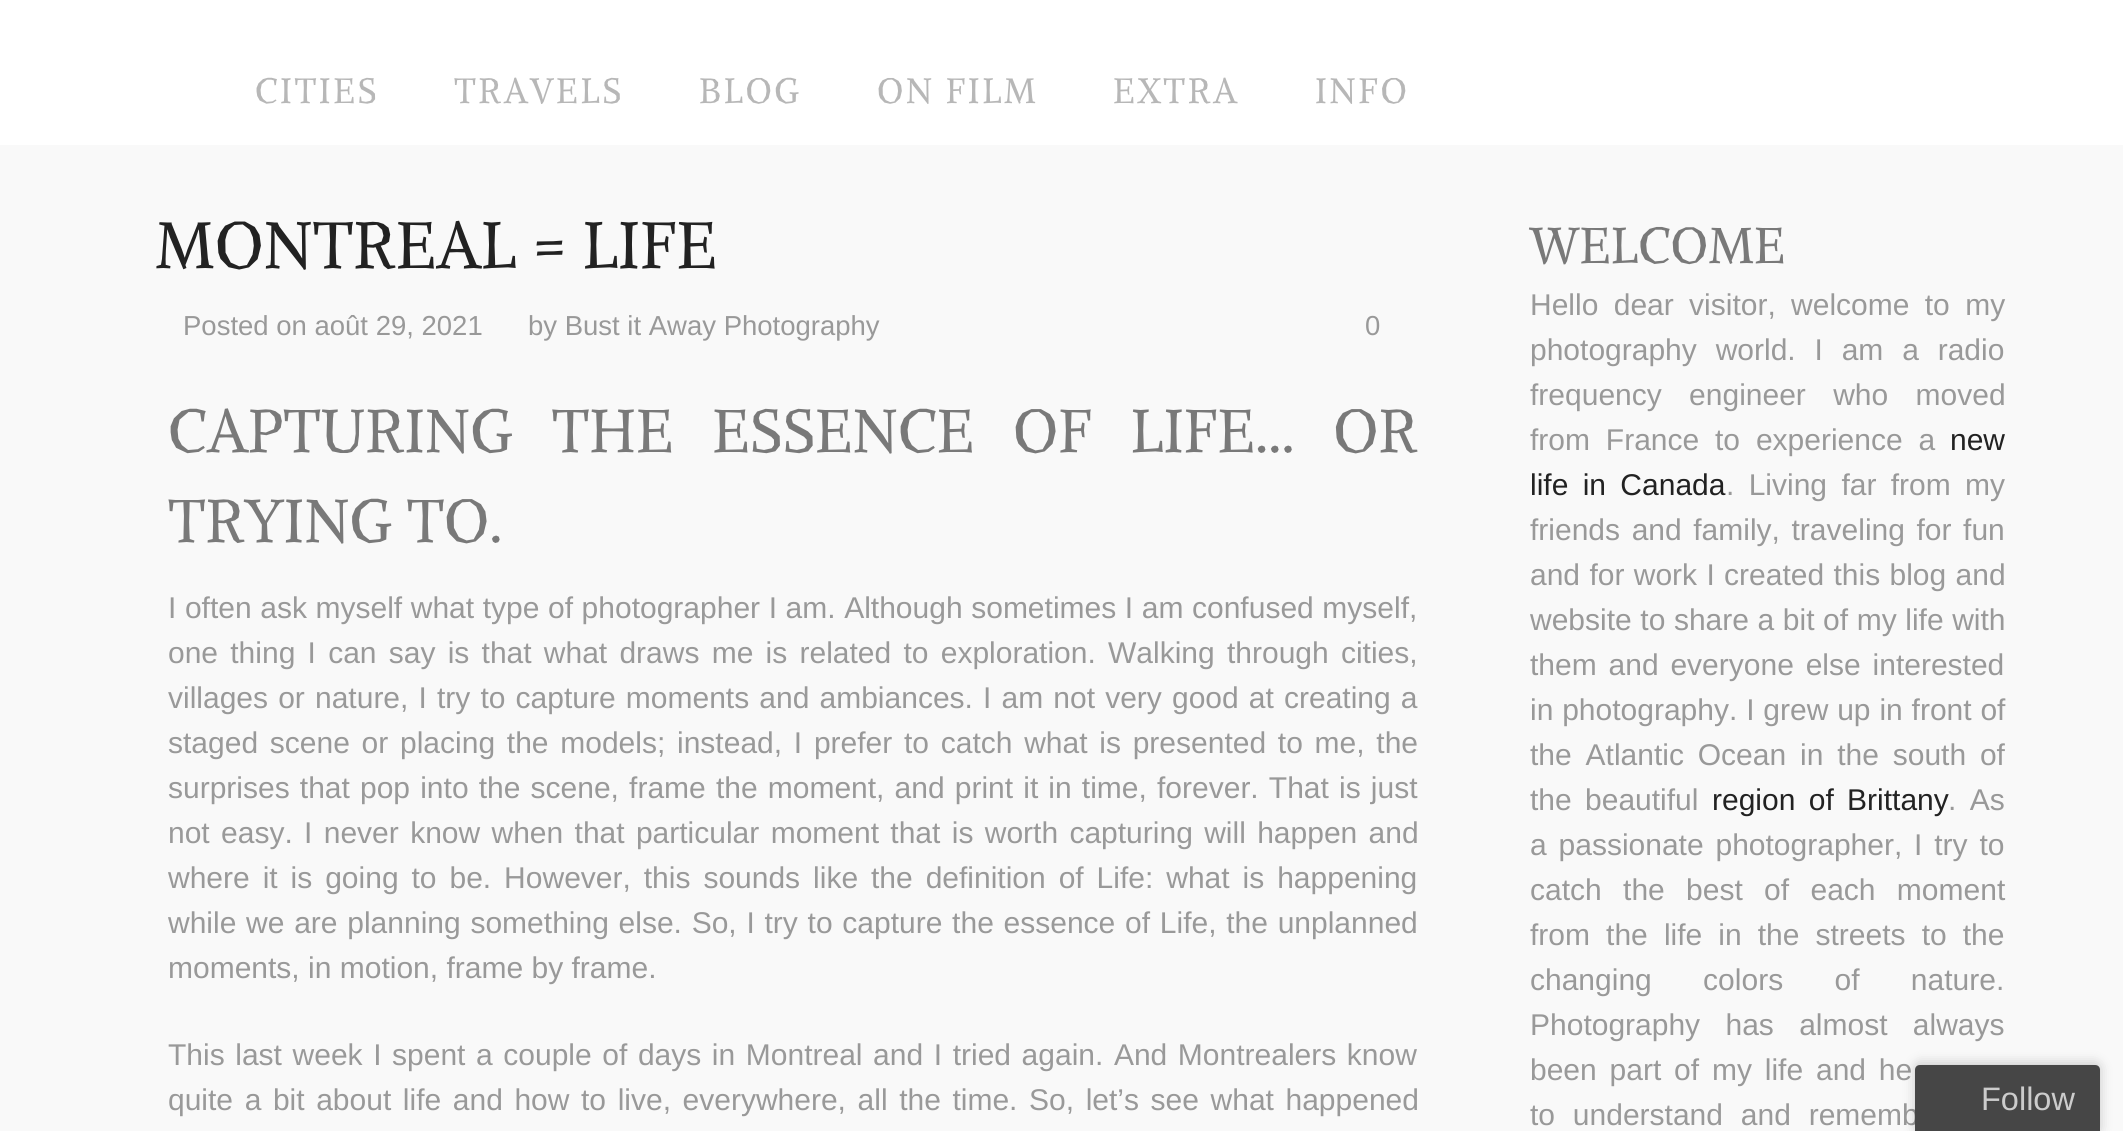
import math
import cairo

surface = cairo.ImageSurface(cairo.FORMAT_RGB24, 2123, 1131)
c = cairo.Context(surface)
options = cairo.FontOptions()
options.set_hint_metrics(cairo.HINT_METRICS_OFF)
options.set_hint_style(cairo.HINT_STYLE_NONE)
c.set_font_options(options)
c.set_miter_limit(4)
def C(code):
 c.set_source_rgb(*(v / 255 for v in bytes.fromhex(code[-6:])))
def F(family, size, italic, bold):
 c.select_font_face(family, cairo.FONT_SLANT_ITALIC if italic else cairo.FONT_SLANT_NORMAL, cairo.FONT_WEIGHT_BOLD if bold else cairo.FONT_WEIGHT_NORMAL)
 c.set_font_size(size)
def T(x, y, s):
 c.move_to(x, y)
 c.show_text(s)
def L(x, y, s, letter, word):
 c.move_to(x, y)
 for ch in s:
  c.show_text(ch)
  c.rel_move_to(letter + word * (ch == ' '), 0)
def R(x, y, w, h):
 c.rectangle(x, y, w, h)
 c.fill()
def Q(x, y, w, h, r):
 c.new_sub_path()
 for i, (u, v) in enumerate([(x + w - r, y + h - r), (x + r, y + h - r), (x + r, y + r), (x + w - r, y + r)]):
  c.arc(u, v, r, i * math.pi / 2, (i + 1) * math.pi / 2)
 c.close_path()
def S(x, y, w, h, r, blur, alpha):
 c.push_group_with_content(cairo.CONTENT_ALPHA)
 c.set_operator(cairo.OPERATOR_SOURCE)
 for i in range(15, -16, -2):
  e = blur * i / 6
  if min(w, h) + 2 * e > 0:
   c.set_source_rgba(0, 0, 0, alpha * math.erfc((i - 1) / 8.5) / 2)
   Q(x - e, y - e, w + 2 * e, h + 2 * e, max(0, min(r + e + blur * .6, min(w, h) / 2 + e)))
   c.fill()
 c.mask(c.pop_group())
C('ffffff')
c.paint()
F('Alike Angular',35,0,0)
C('b7b7b7')
L(255,103,'CITIES',2.5,0)
L(454,103,'TRAVELS',2.5,0)
L(699,103,'BLOG',2.5,0)
L(877,103,'ON FILM',2.5,0)
L(1113,103,'EXTRA',2.5,0)
L(1315,103,'INFO',2.5,0)
C('f9f9f9')
R(0,145,2123,986)
F('Alike Angular',65,0,0)
C('222222')
T(155,268,'MONTREAL = LIFE')
F('Liberation Sans',27.5,0,0)
C('999999')
T(183,335,'Posted on août 29, 2021')
T(528,335,'by Bust it Away Photography')
T(1365,335,'0')
F('Alike Angular',60,0,0)
C('797979')
L(168,452,'CAPTURING THE ESSENCE OF LIFE… OR',0,24.5)
T(168,542,'TRYING TO.')
F('Liberation Sans',30,0,0)
C('999999')
L(168,618,'I often ask myself what type of photographer I am. Although sometimes I am confused myself,',0,.25)
L(168,663,'one thing I can say is that what draws me is related to exploration. Walking through cities,',0,3.9)
L(168,708,'villages or nature, I try to capture moments and ambiances. I am not very good at creating a',0,1.8)
L(168,753,'staged scene or placing the models; instead, I prefer to catch what is presented to me, the',0,3.4)
L(168,798,'surprises that pop into the scene, frame the moment, and print it in time, forever. That is just',0,1.8)
L(168,843,'not easy. I never know when that particular moment that is worth capturing will happen and',0,3)
L(168,888,'where it is going to be. However, this sounds like the definition of Life: what is happening',0,4.6)
L(168,933,'while we are planning something else. So, I try to capture the essence of Life, the unplanned',0,1.4)
T(168,978,'moments, in motion, frame by frame.')
L(168,1065,'This last week I spent a couple of days in Montreal and I tried again. And Montrealers know',0,2.25)
L(168,1110,'quite a bit about life and how to live, everywhere, all the time. So, let’s see what happened',0,3.25)
F('Alike Angular',50,0,0)
C('797979')
T(1530,263,'WELCOME')
F('Liberation Sans',30,0,0)
C('999999')
L(1530,315,'Hello dear visitor, welcome to my',0,7)
L(1530,360,'photography world. I am a radio',0,10.5)
L(1530,405,'frequency engineer who moved',0,19)
L(1530,450,'from France to experience a',0,7.5)
C('222222')
T(1950,450,'new')
L(1530,495,'life in Canada',0,6)
C('999999')
L(1726,495,'. Living far from my',0,6)
L(1530,540,'friends and family, traveling for fun',0,3.25)
L(1530,585,'and for work I created this blog and',0,1)
L(1530,630,'website to share a bit of my life with',0,.25)
L(1530,675,'them and everyone else interested',0,3.5)
L(1530,720,'in photography. I grew up in front of',0,.5)
L(1530,765,'the Atlantic Ocean in the south of',0,5.5)
L(1530,810,'the beautiful',0,5)
C('222222')
L(1712,810,'region of Brittany',0,5)
C('999999')
L(1948,810,'. As',0,5)
L(1530,855,'a passionate photographer, I try to',0,3.5)
L(1530,900,'catch the best of each moment',0,13)
L(1530,945,'from the life in the streets to the',0,7.75)
L(1530,990,'changing colors of nature.',0,43)
L(1530,1035,'Photography has almost always',0,17)
L(1530,1080,'been part of my life and he',0,4.5)
L(1530,1125,'to understand and rememb',0,9.5)
C('000000')
S(1915,1063,185,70,5,6,.2)
C('464646')
c.new_path()
c.move_to(1920,1065)
c.line_to(2095,1065)
c.curve_to(2098,1065,2100,1067,2100,1070)
c.line_to(2100,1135)
c.line_to(1915,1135)
c.line_to(1915,1070)
c.curve_to(1915,1067,1917,1065,1920,1065)
c.close_path()
c.fill()
F('Liberation Sans',32.5,0,0)
C('cccccc')
T(1981,1110,'Follow')
surface.write_to_png('o.png')
